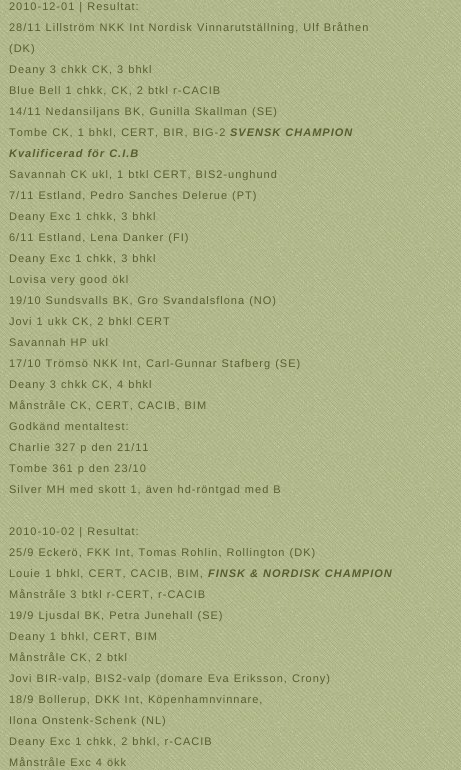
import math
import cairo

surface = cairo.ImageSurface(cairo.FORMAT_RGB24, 461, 770)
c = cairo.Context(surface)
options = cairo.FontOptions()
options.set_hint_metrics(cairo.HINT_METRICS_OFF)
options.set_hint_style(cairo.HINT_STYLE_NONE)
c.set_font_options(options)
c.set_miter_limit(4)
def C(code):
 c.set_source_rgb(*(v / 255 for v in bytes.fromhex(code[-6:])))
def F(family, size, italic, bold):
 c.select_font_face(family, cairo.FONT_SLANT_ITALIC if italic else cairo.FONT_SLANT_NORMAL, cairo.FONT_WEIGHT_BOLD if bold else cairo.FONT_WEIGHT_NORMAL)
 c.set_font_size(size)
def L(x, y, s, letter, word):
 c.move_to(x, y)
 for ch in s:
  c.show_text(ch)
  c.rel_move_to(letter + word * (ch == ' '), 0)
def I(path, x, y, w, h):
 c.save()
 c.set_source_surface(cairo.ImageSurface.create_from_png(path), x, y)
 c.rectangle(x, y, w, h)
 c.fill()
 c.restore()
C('ffffff')
c.paint()
I('1.png',0,0,461,770)
F('Liberation Sans',11,0,0)
C('575d2f')
L(9,10,'2010-12-01 | Resultat:',1,0)
L(9,31,'28/11 Lillström NKK Int Nordisk Vinnarutställning, Ulf Bråthen',1,0)
L(9,52,'(DK)',1,0)
L(9,73,'Deany 3 chkk CK, 3 bhkl',1,0)
L(9,94,'Blue Bell 1 chkk, CK, 2 btkl r-CACIB',1,0)
L(9,115,'14/11 Nedansiljans BK, Gunilla Skallman (SE)',1,0)
L(9,136,'Tombe CK, 1 bhkl, CERT, BIR, BIG-2',1,0)
F('Liberation Sans',11,1,1)
L(230,136,'SVENSK CHAMPION',1,0)
L(9,157,'Kvalificerad för C.I.B',1,0)
F('Liberation Sans',11,0,0)
L(9,178,'Savannah CK ukl, 1 btkl CERT, BIS2-unghund',1,0)
L(9,199,'7/11 Estland, Pedro Sanches Delerue (PT)',1,0)
L(9,220,'Deany Exc 1 chkk, 3 bhkl',1,0)
L(9,241,'6/11 Estland, Lena Danker (FI)',1,0)
L(9,262,'Deany Exc 1 chkk, 3 bhkl',1,0)
L(9,283,'Lovisa very good ökl',1,0)
L(9,304,'19/10 Sundsvalls BK, Gro Svandalsflona (NO)',1,0)
L(9,325,'Jovi 1 ukk CK, 2 bhkl CERT',1,0)
L(9,346,'Savannah HP ukl',1,0)
L(9,367,'17/10 Trömsö NKK Int, Carl-Gunnar Stafberg (SE)',1,0)
L(9,388,'Deany 3 chkk CK, 4 bhkl',1,0)
L(9,409,'Månstråle CK, CERT, CACIB, BIM',1,0)
L(9,430,'Godkänd mentaltest:',1,0)
L(9,451,'Charlie 327 p den 21/11',1,0)
L(9,472,'Tombe 361 p den 23/10',1,0)
L(9,493,'Silver MH med skott 1, även hd-röntgad med B',1,0)
L(9,535,'2010-10-02 | Resultat:',1,0)
L(9,556,'25/9 Eckerö, FKK Int, Tomas Rohlin, Rollington (DK)',1,0)
L(9,577,'Louie 1 bhkl, CERT, CACIB, BIM,',1,0)
F('Liberation Sans',11,1,1)
L(208,577,'FINSK & NORDISK CHAMPION',1,0)
F('Liberation Sans',11,0,0)
L(9,598,'Månstråle 3 btkl r-CERT, r-CACIB',1,0)
L(9,619,'19/9 Ljusdal BK, Petra Junehall (SE)',1,0)
L(9,640,'Deany 1 bhkl, CERT, BIM',1,0)
L(9,661,'Månstråle CK, 2 btkl',1,0)
L(9,682,'Jovi BIR-valp, BIS2-valp (domare Eva Eriksson, Crony)',1,0)
L(9,703,'18/9 Bollerup, DKK Int, Köpenhamnvinnare,',1,0)
L(9,724,'Ilona Onstenk-Schenk (NL)',1,0)
L(9,745,'Deany Exc 1 chkk, 2 bhkl, r-CACIB',1,0)
L(9,766,'Månstråle Exc 4 ökk',1,0)
surface.write_to_png('o.png')
